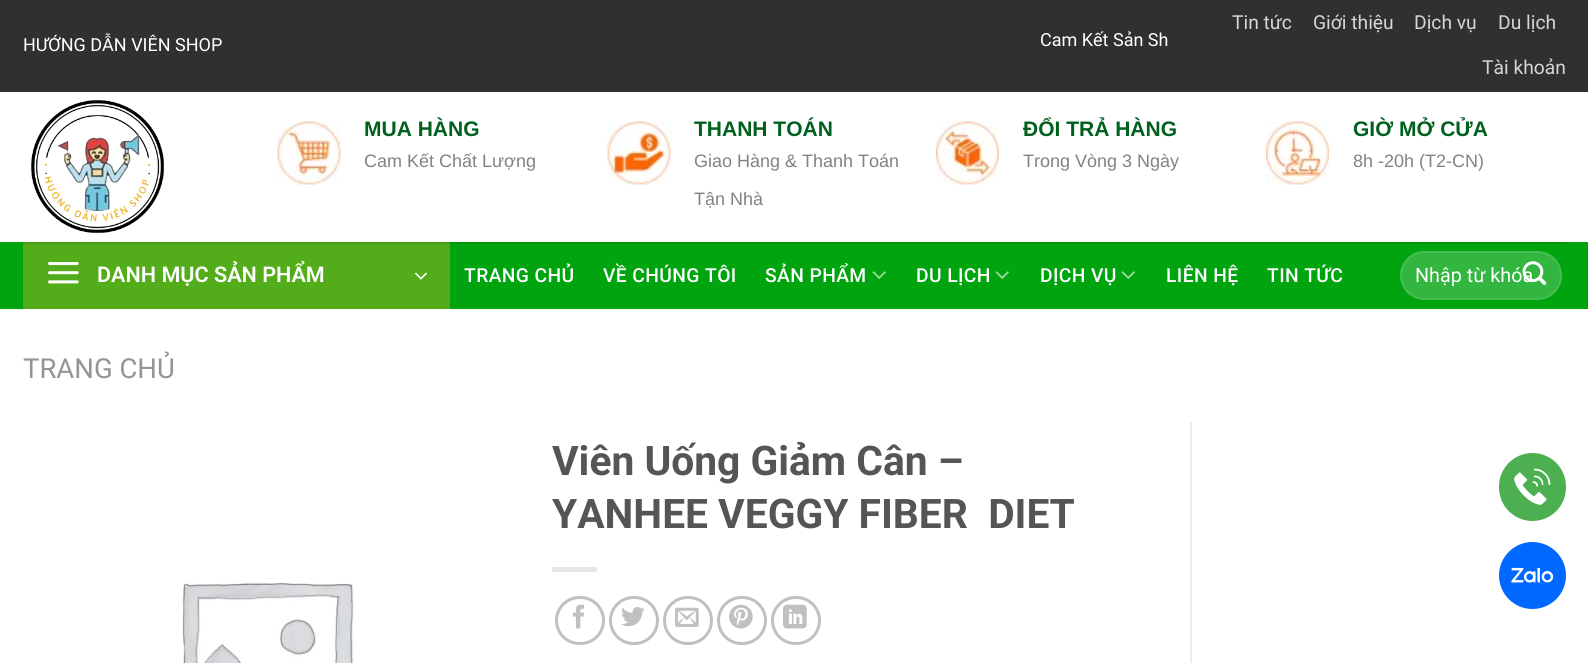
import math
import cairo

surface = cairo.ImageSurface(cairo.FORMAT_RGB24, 1588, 663)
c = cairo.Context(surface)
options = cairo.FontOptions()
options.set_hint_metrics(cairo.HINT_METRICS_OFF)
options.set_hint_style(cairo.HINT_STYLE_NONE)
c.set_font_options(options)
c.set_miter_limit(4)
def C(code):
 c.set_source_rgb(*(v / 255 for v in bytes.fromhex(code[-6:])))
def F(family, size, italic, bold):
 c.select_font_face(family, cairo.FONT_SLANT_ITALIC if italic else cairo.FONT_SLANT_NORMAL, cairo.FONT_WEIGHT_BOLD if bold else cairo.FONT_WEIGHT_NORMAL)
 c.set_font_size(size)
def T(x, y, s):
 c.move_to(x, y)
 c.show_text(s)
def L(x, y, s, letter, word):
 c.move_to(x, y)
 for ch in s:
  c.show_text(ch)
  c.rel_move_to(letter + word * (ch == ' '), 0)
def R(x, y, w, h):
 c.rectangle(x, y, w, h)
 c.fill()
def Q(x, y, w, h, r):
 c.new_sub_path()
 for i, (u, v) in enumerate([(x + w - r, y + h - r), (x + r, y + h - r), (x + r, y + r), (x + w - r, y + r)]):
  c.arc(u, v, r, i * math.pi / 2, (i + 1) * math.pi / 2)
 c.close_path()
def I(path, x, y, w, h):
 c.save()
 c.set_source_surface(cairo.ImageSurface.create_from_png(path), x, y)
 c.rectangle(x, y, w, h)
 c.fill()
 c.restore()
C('ffffff')
c.paint()
C('303030')
R(0,0,1588,92)
F('Roboto',18,0,0)
C('ffffff')
T(23,51,'HƯỚNG DẪN VIÊN SHOP')
T(1040,46,'Cam Kết Sản Sh')
F('Roboto',19.25,0,0)
C('d6d6d6')
T(1232,29,'Tin tức')
T(1313,29,'Giới thiệu')
T(1414,29,'Dịch vụ')
T(1498,29,'Du lịch')
T(1482,74,'Tài khoản')
I('1.png',31,100,133,133)
I('2.png',277,121,64,64)
F('Liberation Sans',21,0,1)
C('00601e')
T(364,136,'MUA HÀNG')
F('Liberation Sans',18,0,0)
C('828282')
T(364,167,'Cam Kết Chất Lượng')
I('3.png',607,121,64,64)
F('Liberation Sans',21,0,1)
C('00601e')
T(694,136,'THANH TOÁN')
F('Liberation Sans',18,0,0)
C('828282')
T(694,167,'Giao Hàng & Thanh Toán')
T(694,205,'Tận Nhà')
I('4.png',936,121,63,64)
F('Liberation Sans',21,0,1)
C('00601e')
T(1023,136,'ĐỔI TRẢ HÀNG')
F('Liberation Sans',18,0,0)
C('828282')
T(1023,167,'Trong Vòng 3 Ngày')
I('5.png',1266,121,63,64)
F('Liberation Sans',21,0,1)
C('00601e')
T(1353,136,'GIỜ MỞ CỬA')
F('Liberation Sans',18,0,0)
C('828282')
T(1353,167,'8h -20h (T2-CN)')
C('00a40f')
R(0,242,1588,67)
C('00940e')
R(450,242,1116,2)
C('53ac19')
R(23,244,427,65)
C('4b9b17')
R(23,242,427,2)
I('6.png',48,262,31,22)
F('Roboto SemiBold',21.6,0,0)
C('ffffff')
T(97,282,'DANH MỤC SẢN PHẨM')
I('7.png',415,272,12,8)
F('Roboto Medium',19.25,0,0)
L(464,282,'TRANG CHỦ',.4,0)
L(603,282,'VỀ CHÚNG TÔI',.4,0)
L(765,282,'SẢN PHẨM',.4,0)
I('8.png',872,271,14,8)
L(916,282,'DU LỊCH',.4,0)
I('8.png',995,271,14,8)
L(1040,282,'DỊCH VỤ',.4,0)
I('8.png',1121,271,14,8)
L(1166,282,'LIÊN HỆ',.4,0)
L(1267,282,'TIN TỨC',.4,0)
C('33b63f')
Q(1400,251,162,49,24.5)
c.fill()
Q(1401,252,160,47,23.5)
c.set_source_rgba(1,1,1,0.09)
c.stroke()
F('Roboto',19.75,0,0)
C('ffffff')
T(1415,282,'Nhập từ khóa')
I('9.png',1522,261,25,24)
F('Roboto',27.5,0,0)
C('949494')
T(23,378,'TRANG CHỦ')
C('ececec')
R(1190,422,2,241)
F('Roboto',40.75,0,1)
C('555555')
T(552,475,'Viên Uống Giảm Cân –')
T(552,528,'YANHEE VEGGY FIBER  DIET')
C('e6e6e6')
R(552,567,45,5)
Q(556.5,597.5,47,46,23)
C('c0c0c0')
c.set_line_width(3)
c.stroke()
I('10.png',573,604,11,25)
Q(610.5,597.5,47,46,23)
c.stroke()
I('11.png',621,607,24,20)
Q(664.5,597.5,47,46,23)
c.stroke()
I('12.png',675,607,24,20)
Q(718.5,597.5,47,46,23)
c.stroke()
I('13.png',729,604,24,25)
Q(772.5,597.5,47,46,23)
c.stroke()
I('14.png',783,604,24,25)
I('15.png',182,581,172,82)
C('4caf50')
Q(1499,453,67,68,33.5)
c.fill()
I('16.png',1514,468,37,37)
C('0068ff')
c.arc(1532.5,575.5,33.5,0,2 * math.pi)
c.fill()
I('17.png',1511,567,43,16)
surface.write_to_png('o.png')
